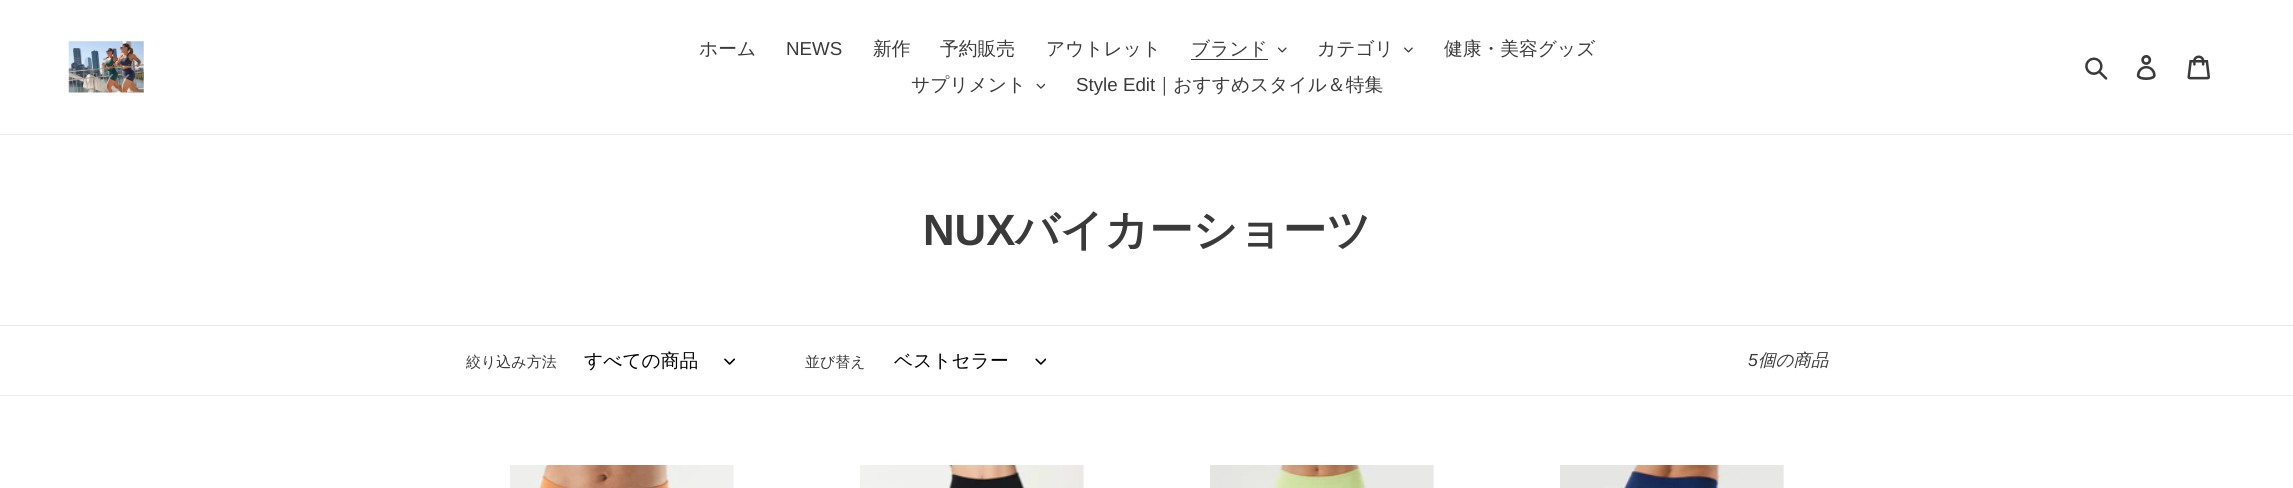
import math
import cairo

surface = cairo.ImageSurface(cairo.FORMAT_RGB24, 2293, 488)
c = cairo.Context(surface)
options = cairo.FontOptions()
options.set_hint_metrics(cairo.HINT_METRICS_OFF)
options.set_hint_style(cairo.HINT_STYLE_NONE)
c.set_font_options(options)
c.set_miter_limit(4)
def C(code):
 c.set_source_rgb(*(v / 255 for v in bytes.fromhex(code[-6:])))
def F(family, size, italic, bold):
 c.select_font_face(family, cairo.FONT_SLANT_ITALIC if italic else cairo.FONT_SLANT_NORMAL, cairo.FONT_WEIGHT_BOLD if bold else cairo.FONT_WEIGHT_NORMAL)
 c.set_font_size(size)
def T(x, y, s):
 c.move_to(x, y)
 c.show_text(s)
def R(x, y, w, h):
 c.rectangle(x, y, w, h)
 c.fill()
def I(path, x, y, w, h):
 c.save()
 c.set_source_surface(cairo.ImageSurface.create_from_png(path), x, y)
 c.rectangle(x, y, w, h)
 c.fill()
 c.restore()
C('ffffff')
c.paint()
C('ebebeb')
R(0,134,2293,1)
I('1.png',68,41,76,52)
F('WenQuanYi Zen Hei Medium',18.75,0,0)
C('3a3a3a')
T(699,55,'ホーム')
F('Liberation Sans',18.75,0,0)
T(786,55,'NEWS')
F('WenQuanYi Zen Hei Medium',18.75,0,0)
T(873,55,'新作')
T(940,55,'予約販売')
T(1046,55,'アウトレット')
T(1191,55,'ブランド')
R(1191,59,77,1)
I('2.png',1278,47,9,6)
T(1317,55,'カテゴリ')
I('3.png',1404,47,9,6)
T(1444,55,'健康・美容グッズ')
T(911,91,'サプリメント')
I('4.png',1036,83,9,6)
F('Liberation Sans',18.75,0,0)
T(1076,91,'Style Edit')
F('WenQuanYi Zen Hei Medium',18.75,0,0)
T(1155,91,'｜おすすめスタイル＆特集')
I('5.png',2085,57,23,23)
I('6.png',2136,55,20,25)
I('7.png',2187,55,23,25)
F('Liberation Sans',43.75,0,1)
T(923,245,'NUX')
F('WenQuanYi Zen Hei',43.75,0,1)
T(1015,245,'バイカーショーツ')
C('ebebeb')
R(0,325,2293,1)
R(0,395,2293,1)
F('WenQuanYi Zen Hei Medium',15,0,0)
C('3a3a3a')
T(466,367,'絞り込み方法')
F('WenQuanYi Zen Hei Medium',18.75,0,0)
C('000000')
T(584,367,'すべての商品')
I('8.png',724,358,11,7)
F('WenQuanYi Zen Hei Medium',15,0,0)
C('3a3a3a')
T(805,367,'並び替え')
F('WenQuanYi Zen Hei Medium',18.75,0,0)
C('000000')
T(894,367,'ベストセラー')
I('9.png',1035,358,11,7)
F('Liberation Sans',17.5,1,0)
C('3a3a3a')
T(1748,366,'5')
F('WenQuanYi Zen Hei Medium',17.5,1,0)
T(1758,366,'個の商品')
I('10.png',510,465,224,23)
I('11.png',860,465,224,23)
I('12.png',1210,465,224,23)
I('13.png',1560,465,224,23)
surface.write_to_png('o.png')
